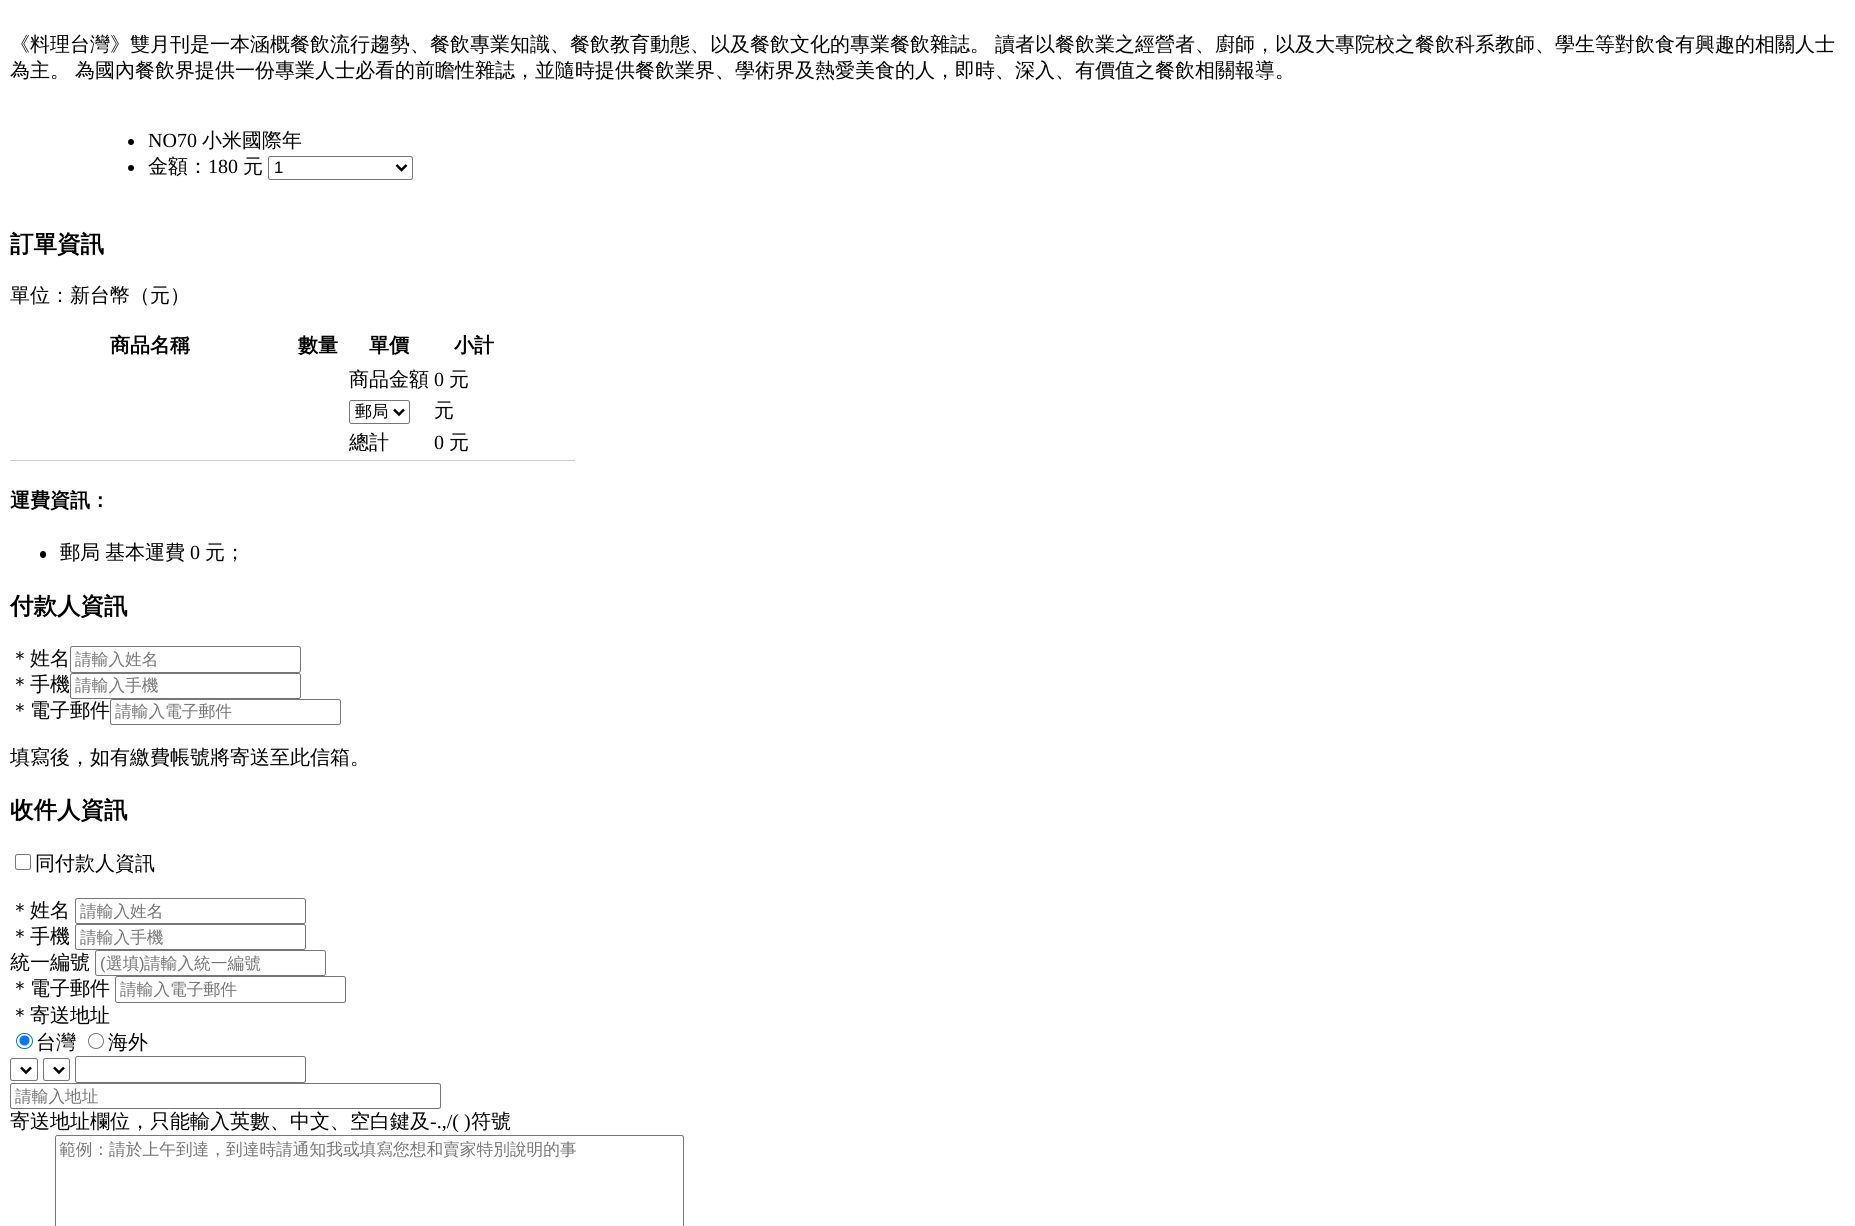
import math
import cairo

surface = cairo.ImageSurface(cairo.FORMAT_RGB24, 1855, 1226)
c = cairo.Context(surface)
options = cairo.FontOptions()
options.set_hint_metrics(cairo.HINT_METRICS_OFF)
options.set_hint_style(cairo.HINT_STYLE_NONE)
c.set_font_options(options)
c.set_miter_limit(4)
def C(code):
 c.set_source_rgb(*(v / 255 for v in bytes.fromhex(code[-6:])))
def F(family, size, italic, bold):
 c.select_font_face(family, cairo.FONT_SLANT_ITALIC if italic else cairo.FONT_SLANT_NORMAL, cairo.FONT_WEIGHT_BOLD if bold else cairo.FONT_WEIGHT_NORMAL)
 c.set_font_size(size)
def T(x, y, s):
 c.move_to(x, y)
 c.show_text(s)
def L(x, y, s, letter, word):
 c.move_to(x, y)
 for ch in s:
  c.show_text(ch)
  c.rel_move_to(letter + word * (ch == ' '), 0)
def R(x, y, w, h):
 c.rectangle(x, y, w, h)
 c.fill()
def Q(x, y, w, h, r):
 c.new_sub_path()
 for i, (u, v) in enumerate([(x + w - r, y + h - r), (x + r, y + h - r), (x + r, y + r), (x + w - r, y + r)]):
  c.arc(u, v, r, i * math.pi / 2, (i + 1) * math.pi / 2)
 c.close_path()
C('ffffff')
c.paint()
F('WenQuanYi Zen Hei Medium',20,0,0)
C('000000')
L(10,51,'《料理台灣》雙月刊是一本涵概餐飲流行趨勢、餐飲專業知識、餐飲教育動態、以及餐飲文化的專業餐飲雜誌。 讀者以餐飲業之經營者、廚師，以及大專院校之餐飲科系教師、學生等對飲食有興趣的相關人士',0,-1)
L(10,77,'為主。 為國內餐飲界提供一份專業人士必看的前瞻性雜誌，並隨時提供餐飲業界、學術界及熱愛美食的人，即時、深入、有價值之餐飲相關報導。',0,-1)
c.new_path()
c.arc(131,142,3,0,2 * math.pi)
c.fill()
F('Liberation Serif',20,0,0)
T(148,147,'NO70')
F('WenQuanYi Zen Hei Medium',20,0,0)
T(202,147,'小米國際年')
c.new_path()
c.arc(131,168,3,0,2 * math.pi)
c.fill()
T(148,173,'金額：')
F('Liberation Serif',20,0,0)
T(208,173,'180')
F('WenQuanYi Zen Hei Medium',20,0,0)
T(243,173,'元')
Q(268.5,156.5,144,23,2)
C('767676')
c.set_line_width(1)
c.stroke()
c.new_path()
c.move_to(396.5,165)
c.line_to(401.5,170)
c.line_to(406.5,165)
C('000000')
c.set_line_width(2.5)
c.stroke()
F('Liberation Sans',16.7,0,0)
T(274,173,'1')
F('WenQuanYi Zen Hei',23.5,0,1)
T(10,252,'訂單資訊')
F('WenQuanYi Zen Hei Medium',20,0,0)
T(10,302,'單位：新台幣（元）')
C('cccccc')
R(10,460,565,1)
F('WenQuanYi Zen Hei',20,0,1)
C('000000')
T(110,352,'商品名稱')
T(298,352,'數量')
T(369,352,'單價')
T(454,352,'小計')
F('WenQuanYi Zen Hei Medium',20,0,0)
T(349,386,'商品金額')
F('Liberation Serif',20,0,0)
T(434,386,'0')
F('WenQuanYi Zen Hei Medium',20,0,0)
T(449,386,'元')
Q(349.5,400.5,60,23,2)
C('767676')
c.set_line_width(1)
c.stroke()
c.new_path()
c.move_to(394,409.5)
c.line_to(399,414.5)
c.line_to(404,409.5)
C('000000')
c.set_line_width(2.5)
c.stroke()
F('WenQuanYi Zen Hei Medium',16.7,0,0)
T(355,417,'郵局')
F('WenQuanYi Zen Hei Medium',20,0,0)
T(434,417,'元')
T(349,449,'總計')
F('Liberation Serif',20,0,0)
T(434,449,'0')
F('WenQuanYi Zen Hei Medium',20,0,0)
T(449,449,'元')
F('WenQuanYi Zen Hei',20,0,1)
T(10,507,'運費資訊：')
Q(40,551,6,7,3)
c.fill()
F('WenQuanYi Zen Hei Medium',20,0,0)
T(60,559,'郵局')
T(105,559,'基本運費')
F('Liberation Serif',20,0,0)
T(190,559,'0')
F('WenQuanYi Zen Hei Medium',20,0,0)
T(205,559,'元；')
F('WenQuanYi Zen Hei',23.5,0,1)
T(10,614,'付款人資訊')
F('WenQuanYi Zen Hei Medium',20,0,0)
T(10,665,'＊姓名')
Q(70.5,646.5,230,26,2)
C('767676')
c.set_line_width(1)
c.stroke()
F('WenQuanYi Zen Hei Medium',16.7,0,0)
C('757575')
T(75,665,'請輸入姓名')
F('WenQuanYi Zen Hei Medium',20,0,0)
C('000000')
T(10,691,'＊手機')
Q(70.5,673.5,230,25,2)
C('767676')
c.stroke()
F('WenQuanYi Zen Hei Medium',16.7,0,0)
C('757575')
T(75,691,'請輸入手機')
F('WenQuanYi Zen Hei Medium',20,0,0)
C('000000')
T(10,717,'＊電子郵件')
Q(110.5,699.5,230,25,2)
C('767676')
c.stroke()
F('WenQuanYi Zen Hei Medium',16.7,0,0)
C('757575')
T(115,717,'請輸入電子郵件')
F('WenQuanYi Zen Hei Medium',20,0,0)
C('000000')
T(10,764,'填寫後，如有繳費帳號將寄送至此信箱。')
F('WenQuanYi Zen Hei',23.5,0,1)
T(10,818,'收件人資訊')
Q(15.5,854.5,15,15,2)
C('767676')
c.stroke()
F('WenQuanYi Zen Hei Medium',20,0,0)
C('000000')
T(35,870,'同付款人資訊')
T(10,917,'＊姓名')
Q(75.5,898.5,230,25,2)
C('767676')
c.stroke()
F('WenQuanYi Zen Hei Medium',16.7,0,0)
C('757575')
T(80,917,'請輸入姓名')
F('WenQuanYi Zen Hei Medium',20,0,0)
C('000000')
T(10,943,'＊手機')
Q(75.5,924.5,230,25,2)
C('767676')
c.stroke()
F('WenQuanYi Zen Hei Medium',16.7,0,0)
C('757575')
T(80,943,'請輸入手機')
F('WenQuanYi Zen Hei Medium',20,0,0)
C('000000')
T(10,969,'統一編號')
Q(95.5,950.5,230,25,2)
C('767676')
c.stroke()
F('Liberation Sans',16.7,0,0)
C('757575')
T(100,969,'(')
F('WenQuanYi Zen Hei Medium',16.7,0,0)
T(106,969,'選填')
F('Liberation Sans',16.7,0,0)
T(139,969,')')
F('WenQuanYi Zen Hei Medium',16.7,0,0)
T(144,969,'請輸入統一編號')
F('WenQuanYi Zen Hei Medium',20,0,0)
C('000000')
T(10,995,'＊電子郵件')
Q(115.5,976.5,230,26,2)
C('767676')
c.stroke()
F('WenQuanYi Zen Hei Medium',16.7,0,0)
C('757575')
T(120,995,'請輸入電子郵件')
F('WenQuanYi Zen Hei Medium',20,0,0)
C('000000')
T(10,1022,'＊寄送地址')
Q(16.5,1033.5,16,15,7.5)
C('0075ff')
c.stroke()
c.arc(24.5,1040.5,5,0,2 * math.pi)
c.fill()
C('000000')
T(36,1049,'台灣')
c.new_path()
c.arc(96,1041,7.5,0,2 * math.pi)
C('767676')
c.stroke()
C('000000')
T(108,1049,'海外')
Q(10.5,1058.5,27,22,2)
C('767676')
c.stroke()
c.new_path()
c.move_to(21,1067.5)
c.line_to(26,1072.5)
c.line_to(31,1067.5)
C('000000')
c.set_line_width(2.5)
c.stroke()
Q(43.5,1058.5,26,22,2)
C('767676')
c.set_line_width(1)
c.stroke()
c.new_path()
c.move_to(54,1067.5)
c.line_to(59,1072.5)
c.line_to(64,1067.5)
C('000000')
c.set_line_width(2.5)
c.stroke()
Q(75.5,1056.5,230,26,2)
C('767676')
c.set_line_width(1)
c.stroke()
Q(10.5,1083.5,430,25,2)
c.stroke()
F('WenQuanYi Zen Hei Medium',16.7,0,0)
C('757575')
T(15,1102,'請輸入地址')
F('WenQuanYi Zen Hei Medium',20,0,0)
C('000000')
T(10,1128,'寄送地址欄位，只能輸入英數、中文、空白鍵及')
F('Liberation Serif',20,0,0)
T(430,1128,'-.,/( )')
F('WenQuanYi Zen Hei Medium',20,0,0)
T(471,1128,'符號')
Q(55.5,1135.5,628,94,2)
C('767676')
c.stroke()
F('WenQuanYi Zen Hei Medium',16.7,0,0)
C('757575')
T(59,1155,'範例：請於上午到達，到達時請通知我或填寫您想和賣家特別說明的事')
surface.write_to_png('o.png')
